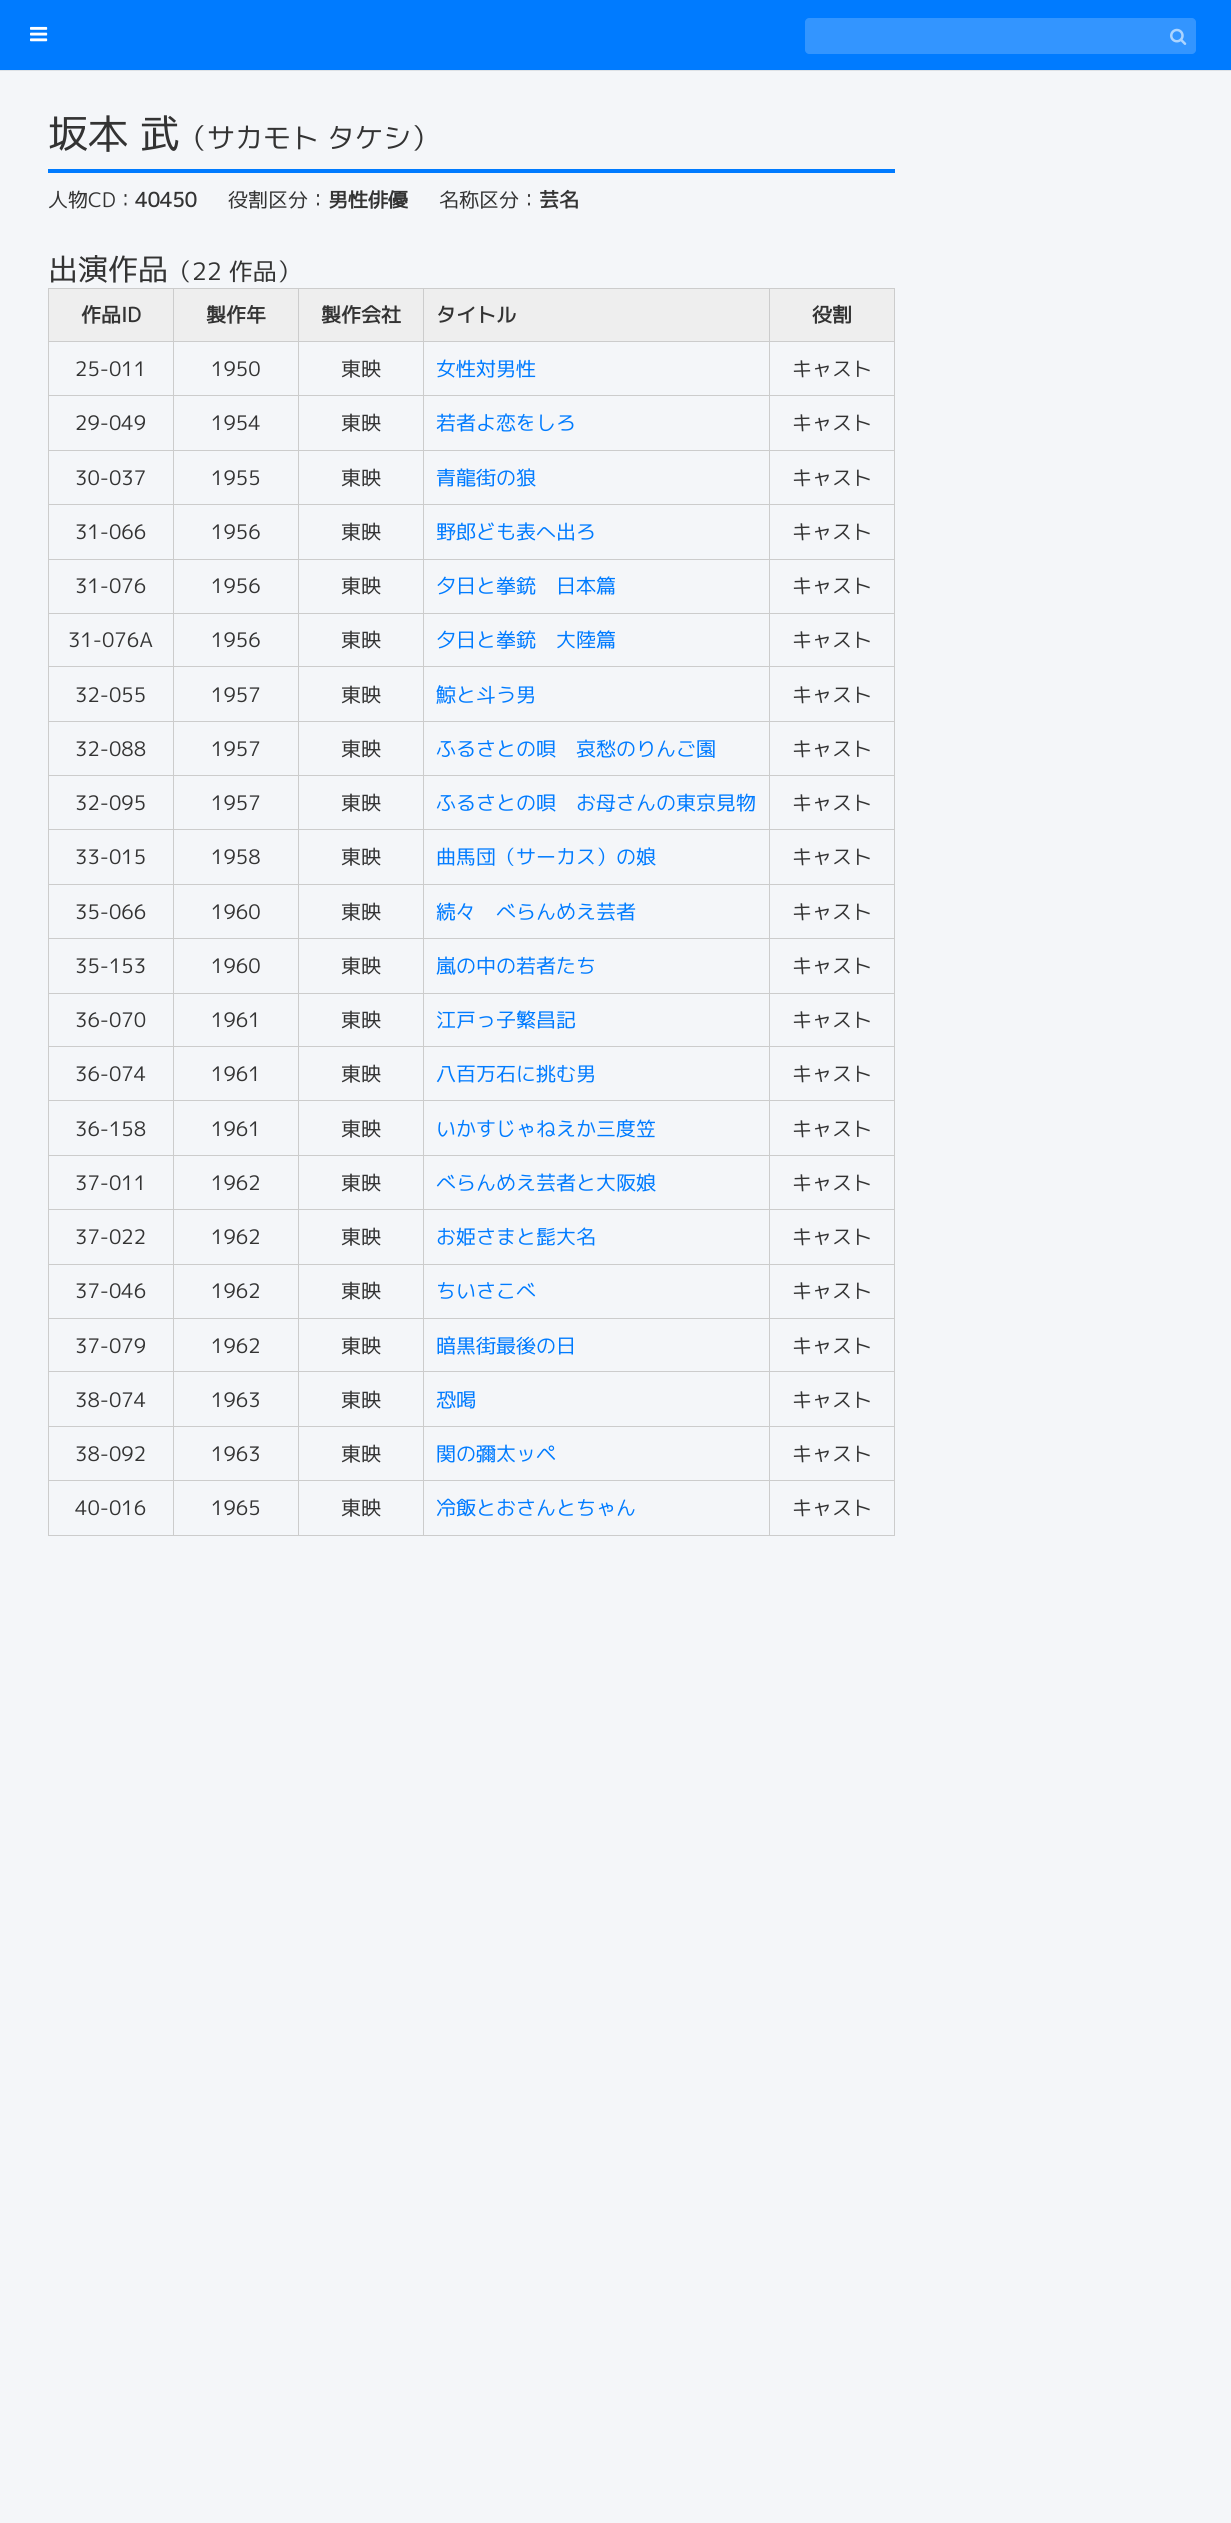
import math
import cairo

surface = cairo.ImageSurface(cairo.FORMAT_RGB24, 1231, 2523)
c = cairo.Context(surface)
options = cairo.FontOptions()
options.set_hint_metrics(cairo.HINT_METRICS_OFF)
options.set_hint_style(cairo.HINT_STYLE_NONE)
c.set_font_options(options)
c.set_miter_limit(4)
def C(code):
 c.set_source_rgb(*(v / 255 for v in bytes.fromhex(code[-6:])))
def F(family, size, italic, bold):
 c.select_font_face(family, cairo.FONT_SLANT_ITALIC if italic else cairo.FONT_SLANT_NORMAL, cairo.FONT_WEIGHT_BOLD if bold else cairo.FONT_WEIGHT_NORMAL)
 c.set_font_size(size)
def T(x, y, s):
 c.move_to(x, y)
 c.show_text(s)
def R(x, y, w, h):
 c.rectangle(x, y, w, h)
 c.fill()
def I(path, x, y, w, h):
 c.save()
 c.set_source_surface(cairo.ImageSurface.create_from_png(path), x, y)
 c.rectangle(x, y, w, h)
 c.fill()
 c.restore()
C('f4f6f9')
c.paint()
C('007bff')
R(0,0,1231,70)
C('dee2e6')
R(0,70,1231,1)
I('1.png',30,26,18,16)
C('3395ff')
c.new_path()
c.move_to(809,18)
c.line_to(1160,18)
c.line_to(1160,54)
c.line_to(809,54)
c.curve_to(807,54,805,52,805,50)
c.line_to(805,22)
c.curve_to(805,20,807,18,809,18)
c.close_path()
c.fill()
c.new_path()
c.move_to(1160,18)
c.line_to(1192,18)
c.curve_to(1194,18,1196,20,1196,22)
c.line_to(1196,50)
c.curve_to(1196,52,1194,54,1192,54)
c.line_to(1160,54)
c.close_path()
c.fill()
I('2.png',1170,28,17,17)
C('007bff')
R(48,169,847,4)
F('M PLUS 1p',40,0,0)
C('333333')
T(48,148,'坂本 武')
F('M PLUS 1p',28,0,0)
T(179,148,'（サカモト タケシ）')
F('M PLUS 1p',20,0,0)
T(48,207,'人物CD：')
F('M PLUS 1p',20,0,1)
T(135,207,'40450')
F('M PLUS 1p',20,0,0)
T(228,207,'役割区分：')
F('M PLUS 1p',20,0,1)
T(328,207,'男性俳優')
F('M PLUS 1p',20,0,0)
T(439,207,'名称区分：')
F('M PLUS 1p',20,0,1)
T(539,207,'芸名')
F('M PLUS 1p',30,0,0)
T(48,280,'出演作品')
F('M PLUS 1p',24,0,0)
T(168,280,'（22 作品）')
C('eeeeee')
R(49,289,124,52)
C('cccccc')
R(769,288,126,1)
R(769,341,126,1)
R(769,395,126,1)
R(769,450,126,1)
R(769,504,126,1)
R(769,559,126,1)
R(769,613,126,1)
R(769,666,126,1)
R(769,721,126,1)
R(769,775,126,1)
R(769,829,126,1)
R(769,884,126,1)
R(769,938,126,1)
R(769,993,126,1)
R(769,1046,126,1)
R(769,1100,126,1)
R(769,1155,126,1)
R(769,1209,126,1)
R(769,1264,126,1)
R(769,1318,126,1)
R(769,1371,126,1)
R(769,1426,126,1)
R(769,1480,126,1)
R(894,1480,1,56)
R(769,1535,126,1)
R(769,1480,1,56)
R(423,1480,347,1)
R(769,1426,1,55)
R(423,1426,347,1)
R(769,1371,1,57)
R(423,1371,347,1)
R(769,1318,1,55)
R(423,1318,347,1)
R(769,1264,1,55)
R(423,1264,347,1)
R(769,1209,1,56)
R(423,1209,347,1)
R(769,1155,1,55)
R(423,1155,347,1)
R(769,1100,1,56)
R(423,1100,347,1)
R(769,1046,1,55)
R(423,1046,347,1)
R(769,993,1,55)
R(423,993,347,1)
R(769,938,1,56)
R(423,938,347,1)
R(769,884,1,55)
R(423,884,347,1)
R(769,829,1,56)
R(423,829,347,1)
R(769,775,1,55)
R(423,775,347,1)
R(769,721,1,55)
R(423,721,347,1)
R(769,666,1,57)
R(423,666,347,1)
R(769,613,1,55)
R(423,613,347,1)
R(769,559,1,55)
R(423,559,347,1)
R(769,504,1,56)
R(423,504,347,1)
R(769,450,1,55)
R(423,450,347,1)
R(769,395,1,56)
R(423,395,347,1)
R(769,341,1,55)
R(423,341,347,1)
R(769,288,1,55)
R(423,288,347,1)
R(423,1535,347,1)
R(423,1480,1,56)
R(298,1480,126,1)
R(423,1426,1,55)
R(298,1426,126,1)
R(423,1371,1,57)
R(298,1371,126,1)
R(423,1318,1,55)
R(298,1318,126,1)
R(423,1264,1,55)
R(298,1264,126,1)
R(423,1209,1,56)
R(298,1209,126,1)
R(423,1155,1,55)
R(298,1155,126,1)
R(423,1100,1,56)
R(298,1100,126,1)
R(423,1046,1,55)
R(298,1046,126,1)
R(423,993,1,55)
R(298,993,126,1)
R(423,938,1,56)
R(298,938,126,1)
R(423,884,1,55)
R(298,884,126,1)
R(423,829,1,56)
R(298,829,126,1)
R(423,775,1,55)
R(298,775,126,1)
R(423,721,1,55)
R(298,721,126,1)
R(423,666,1,57)
R(298,666,126,1)
R(423,613,1,55)
R(298,613,126,1)
R(423,559,1,55)
R(298,559,126,1)
R(423,504,1,56)
R(298,504,126,1)
R(423,450,1,55)
R(298,450,126,1)
R(423,395,1,56)
R(298,395,126,1)
R(423,341,1,55)
R(298,341,126,1)
R(423,288,1,55)
R(298,288,126,1)
R(298,1535,126,1)
R(298,1480,1,56)
R(173,1480,126,1)
R(298,1426,1,55)
R(173,1426,126,1)
R(298,1371,1,57)
R(173,1371,126,1)
R(298,1318,1,55)
R(173,1318,126,1)
R(298,1264,1,55)
R(173,1264,126,1)
R(298,1209,1,56)
R(173,1209,126,1)
R(298,1155,1,55)
R(173,1155,126,1)
R(298,1100,1,56)
R(173,1100,126,1)
R(298,1046,1,55)
R(173,1046,126,1)
R(298,993,1,55)
R(173,993,126,1)
R(298,938,1,56)
R(173,938,126,1)
R(298,884,1,55)
R(173,884,126,1)
R(298,829,1,56)
R(173,829,126,1)
R(298,775,1,55)
R(173,775,126,1)
R(298,721,1,55)
R(173,721,126,1)
R(298,666,1,57)
R(173,666,126,1)
R(298,613,1,55)
R(173,613,126,1)
R(298,559,1,55)
R(173,559,126,1)
R(298,504,1,56)
R(173,504,126,1)
R(298,450,1,55)
R(173,450,126,1)
R(298,395,1,56)
R(173,395,126,1)
R(298,341,1,55)
R(173,341,126,1)
R(298,288,1,55)
R(173,288,126,1)
R(173,1535,126,1)
R(173,1480,1,56)
R(48,1480,126,1)
R(173,1426,1,55)
R(48,1426,126,1)
R(173,1371,1,57)
R(48,1371,126,1)
R(173,1318,1,55)
R(48,1318,126,1)
R(173,1264,1,55)
R(48,1264,126,1)
R(173,1209,1,56)
R(48,1209,126,1)
R(173,1155,1,55)
R(48,1155,126,1)
R(173,1100,1,56)
R(48,1100,126,1)
R(173,1046,1,55)
R(48,1046,126,1)
R(173,993,1,55)
R(48,993,126,1)
R(173,938,1,56)
R(48,938,126,1)
R(173,884,1,55)
R(48,884,126,1)
R(173,829,1,56)
R(48,829,126,1)
R(173,775,1,55)
R(48,775,126,1)
R(173,721,1,55)
R(48,721,126,1)
R(173,666,1,57)
R(48,666,126,1)
R(173,613,1,55)
R(48,613,126,1)
R(173,559,1,55)
R(48,559,126,1)
R(173,504,1,56)
R(48,504,126,1)
R(173,450,1,55)
R(48,450,126,1)
R(173,395,1,56)
R(48,395,126,1)
R(173,341,1,55)
R(48,341,126,1)
R(173,288,1,55)
R(48,288,126,1)
R(48,1535,126,1)
R(48,1480,1,56)
R(48,1426,1,55)
R(48,1371,1,57)
R(48,1318,1,55)
R(48,1264,1,55)
R(48,1209,1,56)
R(48,1155,1,55)
R(48,1100,1,56)
R(48,1046,1,55)
R(48,993,1,55)
R(48,938,1,56)
R(48,884,1,55)
R(48,829,1,56)
R(48,775,1,55)
R(48,721,1,55)
R(48,666,1,57)
R(48,613,1,55)
R(48,559,1,55)
R(48,504,1,56)
R(48,450,1,55)
R(48,395,1,56)
R(48,341,1,55)
R(48,288,1,55)
F('M PLUS 1p',20,0,1)
C('333333')
T(81,322,'作品ID')
C('eeeeee')
R(174,289,124,52)
C('333333')
T(206,322,'製作年')
C('eeeeee')
R(299,289,124,52)
C('333333')
T(321,322,'製作会社')
C('eeeeee')
R(424,289,345,52)
C('333333')
T(436,322,'タイトル')
C('eeeeee')
R(770,289,124,52)
C('cccccc')
R(894,1426,1,55)
R(894,1371,1,57)
R(894,1318,1,55)
R(894,1264,1,55)
R(894,1209,1,56)
R(894,1155,1,55)
R(894,1100,1,56)
R(894,1046,1,55)
R(894,993,1,55)
R(894,938,1,56)
R(894,884,1,55)
R(894,829,1,56)
R(894,775,1,55)
R(894,721,1,55)
R(894,666,1,57)
R(894,613,1,55)
R(894,559,1,55)
R(894,504,1,56)
R(894,450,1,55)
R(894,395,1,56)
R(894,341,1,55)
R(894,288,1,55)
C('333333')
T(812,322,'役割')
F('M PLUS 1p',20,0,0)
T(75,376,'25-011')
T(211,376,'1950')
T(341,376,'東映')
C('007bff')
T(436,376,'女性対男性')
C('333333')
T(792,376,'キャスト')
T(75,430,'29-049')
T(211,430,'1954')
T(341,430,'東映')
C('007bff')
T(436,430,'若者よ恋をしろ')
C('333333')
T(792,430,'キャスト')
T(75,485,'30-037')
T(211,485,'1955')
T(341,485,'東映')
C('007bff')
T(436,485,'青龍街の狼')
C('333333')
T(792,485,'キャスト')
T(75,539,'31-066')
T(211,539,'1956')
T(341,539,'東映')
C('007bff')
T(436,539,'野郎ども表へ出ろ')
C('333333')
T(792,539,'キャスト')
T(75,593,'31-076')
T(211,593,'1956')
T(341,593,'東映')
C('007bff')
T(436,593,'夕日と拳銃　日本篇')
C('333333')
T(792,593,'キャスト')
T(68,647,'31-076A')
T(211,647,'1956')
T(341,647,'東映')
C('007bff')
T(436,647,'夕日と拳銃　大陸篇')
C('333333')
T(792,647,'キャスト')
T(75,702,'32-055')
T(211,702,'1957')
T(341,702,'東映')
C('007bff')
T(436,702,'鯨と斗う男')
C('333333')
T(792,702,'キャスト')
T(75,756,'32-088')
T(211,756,'1957')
T(341,756,'東映')
C('007bff')
T(436,756,'ふるさとの唄　哀愁のりんご園')
C('333333')
T(792,756,'キャスト')
T(75,810,'32-095')
T(211,810,'1957')
T(341,810,'東映')
C('007bff')
T(436,810,'ふるさとの唄　お母さんの東京見物')
C('333333')
T(792,810,'キャスト')
T(75,864,'33-015')
T(211,864,'1958')
T(341,864,'東映')
C('007bff')
T(436,864,'曲馬団（サーカス）の娘')
C('333333')
T(792,864,'キャスト')
T(75,919,'35-066')
T(211,919,'1960')
T(341,919,'東映')
C('007bff')
T(436,919,'続々　べらんめえ芸者')
C('333333')
T(792,919,'キャスト')
T(75,973,'35-153')
T(211,973,'1960')
T(341,973,'東映')
C('007bff')
T(436,973,'嵐の中の若者たち')
C('333333')
T(792,973,'キャスト')
T(75,1027,'36-070')
T(211,1027,'1961')
T(341,1027,'東映')
C('007bff')
T(436,1027,'江戸っ子繁昌記')
C('333333')
T(792,1027,'キャスト')
T(75,1081,'36-074')
T(211,1081,'1961')
T(341,1081,'東映')
C('007bff')
T(436,1081,'八百万石に挑む男')
C('333333')
T(792,1081,'キャスト')
T(75,1136,'36-158')
T(211,1136,'1961')
T(341,1136,'東映')
C('007bff')
T(436,1136,'いかすじゃねえか三度笠')
C('333333')
T(792,1136,'キャスト')
T(75,1190,'37-011')
T(211,1190,'1962')
T(341,1190,'東映')
C('007bff')
T(436,1190,'べらんめえ芸者と大阪娘')
C('333333')
T(792,1190,'キャスト')
T(75,1244,'37-022')
T(211,1244,'1962')
T(341,1244,'東映')
C('007bff')
T(436,1244,'お姫さまと髭大名')
C('333333')
T(792,1244,'キャスト')
T(75,1298,'37-046')
T(211,1298,'1962')
T(341,1298,'東映')
C('007bff')
T(436,1298,'ちいさこべ')
C('333333')
T(792,1298,'キャスト')
T(75,1353,'37-079')
T(211,1353,'1962')
T(341,1353,'東映')
C('007bff')
T(436,1353,'暗黒街最後の日')
C('333333')
T(792,1353,'キャスト')
T(75,1407,'38-074')
T(211,1407,'1963')
T(341,1407,'東映')
C('007bff')
T(436,1407,'恐喝')
C('333333')
T(792,1407,'キャスト')
T(75,1461,'38-092')
T(211,1461,'1963')
T(341,1461,'東映')
C('007bff')
T(436,1461,'関の彌太ッペ')
C('333333')
T(792,1461,'キャスト')
T(75,1515,'40-016')
T(211,1515,'1965')
T(341,1515,'東映')
C('007bff')
T(436,1515,'冷飯とおさんとちゃん')
C('333333')
T(792,1515,'キャスト')
surface.write_to_png('o.png')
